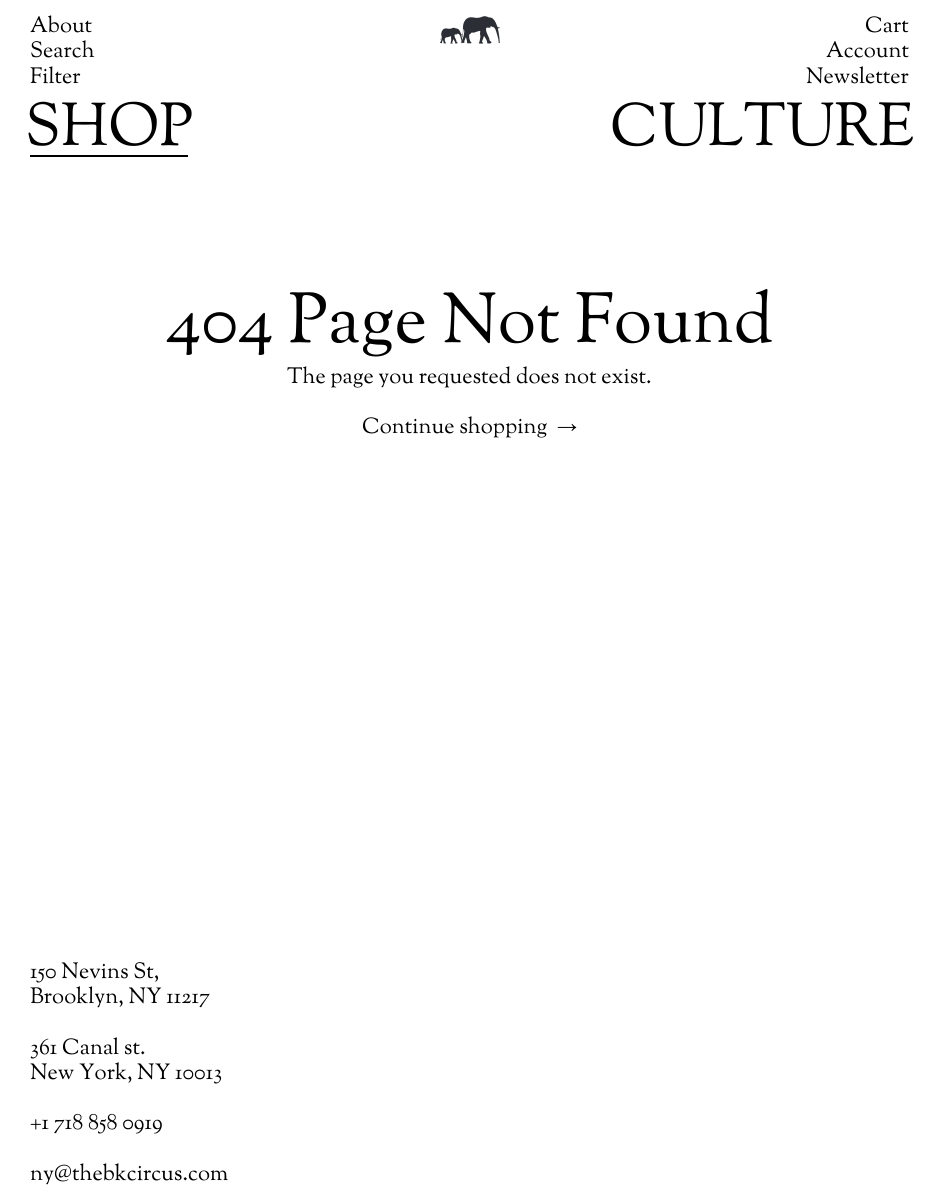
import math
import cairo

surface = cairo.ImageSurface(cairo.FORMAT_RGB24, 939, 1198)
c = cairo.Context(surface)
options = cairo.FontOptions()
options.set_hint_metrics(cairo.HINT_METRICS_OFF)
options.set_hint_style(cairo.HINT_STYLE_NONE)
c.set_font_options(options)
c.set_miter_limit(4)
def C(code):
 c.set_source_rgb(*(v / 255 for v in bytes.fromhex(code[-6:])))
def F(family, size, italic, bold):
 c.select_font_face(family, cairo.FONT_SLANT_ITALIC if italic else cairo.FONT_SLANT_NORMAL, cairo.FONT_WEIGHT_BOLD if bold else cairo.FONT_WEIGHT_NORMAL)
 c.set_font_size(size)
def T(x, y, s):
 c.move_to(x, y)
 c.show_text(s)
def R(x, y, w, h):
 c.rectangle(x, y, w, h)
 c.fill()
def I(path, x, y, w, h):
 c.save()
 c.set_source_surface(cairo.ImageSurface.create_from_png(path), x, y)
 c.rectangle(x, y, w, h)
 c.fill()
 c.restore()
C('ffffff')
c.paint()
F('Sorts Mill Goudy',22,0,0)
C('000000')
T(30,32,'About')
T(30,57,'Search')
T(30,83,'Filter')
T(865,32,'Cart')
T(826,57,'Account')
T(806,83,'Newsletter')
I('1.png',440,16,60,28)
F('Sorts Mill Goudy',60,0,0)
T(25,145,'SHOP')
R(30,155,158,2)
T(610,145,'CULTURE')
F('Sorts Mill Goudy',70,0,0)
T(166,342,'404 Page Not Found')
F('Sorts Mill Goudy',22,0,0)
T(287,383,'The page you requested does not exist.')
T(362,433,'Continue shopping')
I('2.png',557,423,20,8)
T(30,978,'150 Nevins St,')
T(30,1003,'Brooklyn, NY 11217')
T(30,1054,'361 Canal st.')
T(30,1079,'New York, NY 10013')
T(30,1129,'+1 718 858 0919')
T(30,1180,'ny@thebkcircus.com')
surface.write_to_png('o.png')
